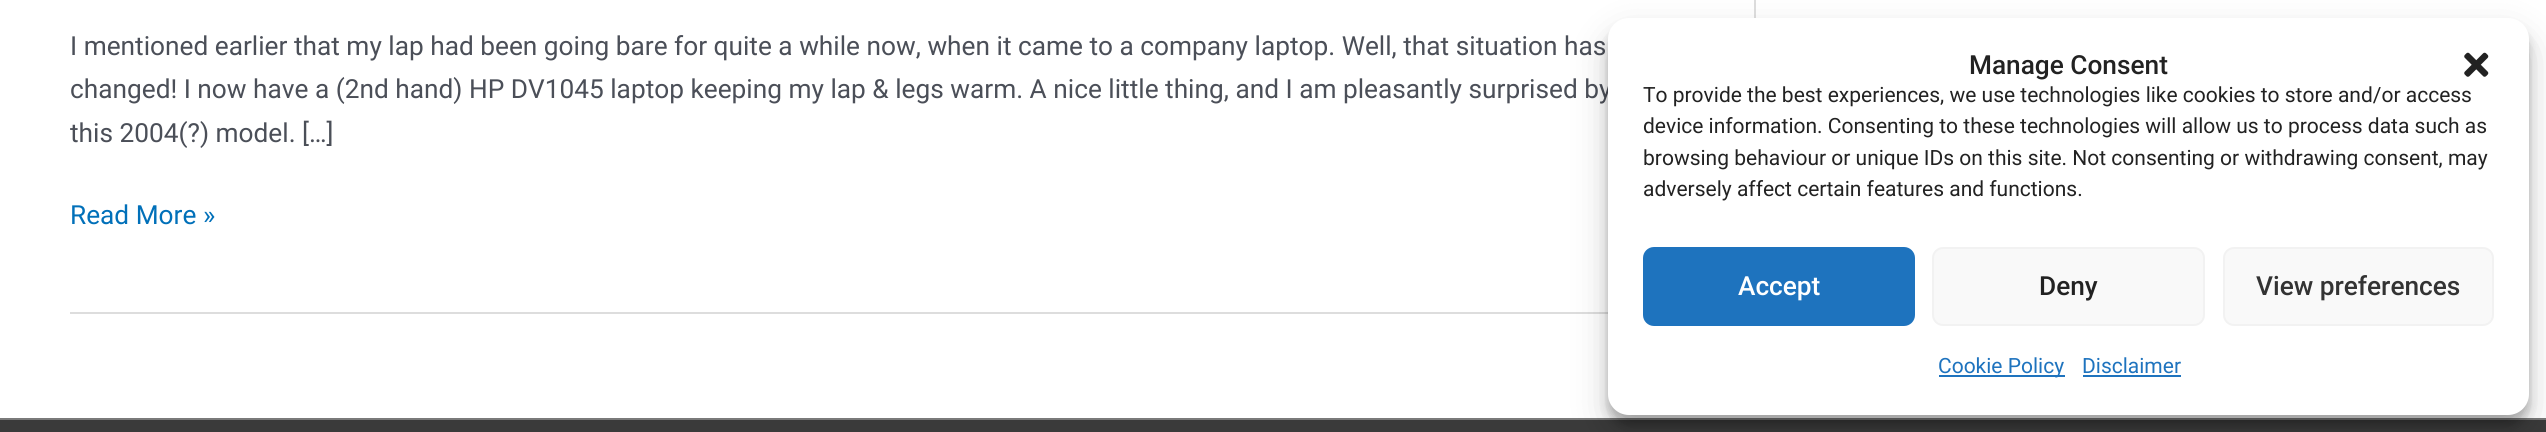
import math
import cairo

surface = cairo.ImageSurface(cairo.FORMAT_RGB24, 2546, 432)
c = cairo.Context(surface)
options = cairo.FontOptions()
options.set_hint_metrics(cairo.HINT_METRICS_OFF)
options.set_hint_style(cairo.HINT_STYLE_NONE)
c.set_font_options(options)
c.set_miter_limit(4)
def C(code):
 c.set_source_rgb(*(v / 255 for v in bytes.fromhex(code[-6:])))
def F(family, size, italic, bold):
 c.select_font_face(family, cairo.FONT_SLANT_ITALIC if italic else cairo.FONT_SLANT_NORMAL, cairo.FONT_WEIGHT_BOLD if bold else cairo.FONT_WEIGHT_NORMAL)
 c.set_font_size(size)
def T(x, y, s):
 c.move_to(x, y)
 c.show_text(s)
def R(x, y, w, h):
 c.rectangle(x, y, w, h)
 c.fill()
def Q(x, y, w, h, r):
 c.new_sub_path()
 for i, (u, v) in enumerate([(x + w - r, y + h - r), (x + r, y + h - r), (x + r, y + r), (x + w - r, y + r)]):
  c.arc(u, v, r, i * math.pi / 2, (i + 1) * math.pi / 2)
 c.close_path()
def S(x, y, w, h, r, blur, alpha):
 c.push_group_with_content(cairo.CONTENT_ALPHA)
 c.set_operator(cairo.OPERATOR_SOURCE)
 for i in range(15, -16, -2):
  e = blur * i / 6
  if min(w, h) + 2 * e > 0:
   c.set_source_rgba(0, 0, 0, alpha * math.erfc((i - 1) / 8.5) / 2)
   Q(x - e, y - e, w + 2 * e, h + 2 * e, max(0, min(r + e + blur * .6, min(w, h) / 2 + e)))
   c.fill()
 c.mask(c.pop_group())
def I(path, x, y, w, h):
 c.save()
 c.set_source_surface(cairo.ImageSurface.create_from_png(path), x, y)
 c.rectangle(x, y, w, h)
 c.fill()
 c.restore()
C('ffffff')
c.paint()
C('dddddd')
R(1754,0,2,18)
R(70,312,1538,2)
F('Roboto',26.25,0,0)
C('4b4f58')
T(70,55,'I mentioned earlier that my lap had been going bare for quite a while now, when it came to a company laptop. Well, that situation has')
T(70,98,'changed! I now have a (2nd hand) HP DV1045 laptop keeping my lap & legs warm. A nice little thing, and I am pleasantly surprised by')
T(70,142,'this 2004(?) model. […]')
C('0170b9')
T(70,224,'Read More »')
C('7a7a7a')
R(0,418,2546,2)
C('3a3a3a')
R(0,420,2546,12)
C('000000')
S(1608,28,921,397,21,5,.23)
S(1608,35,921,397,21,17.5,.19)
C('ffffff')
Q(1608,18,921,397,21)
c.fill()
F('Roboto Medium',26.25,0,0)
C('222222')
T(1969,74,'Manage Consent')
I('1.png',2464,52,25,25)
F('Roboto',21,0,0)
T(1643,102,'To provide the best experiences, we use technologies like cookies to store and/or access')
T(1643,133,'device information. Consenting to these technologies will allow us to process data such as')
T(1643,165,'browsing behaviour or unique IDs on this site. Not consenting or withdrawing consent, may')
T(1643,196,'adversely affect certain features and functions.')
C('1e73be')
Q(1644,248,270,77,10)
c.fill_preserve()
c.stroke()
F('Roboto Medium',26.25,0,0)
C('ffffff')
T(1738,295,'Accept')
C('f9f9f9')
Q(1933,248,271,77,10)
c.fill_preserve()
C('f2f2f2')
c.stroke()
C('222222')
T(2039,295,'Deny')
C('f9f9f9')
Q(2224,248,269,77,10)
c.fill_preserve()
C('f2f2f2')
c.stroke()
C('333333')
T(2256,295,'View preferences')
C('1e73be')
R(1939,375,126,2)
F('Roboto',21,0,0)
T(1938,373,'Cookie Policy')
T(2082,373,'Disclaimer')
R(2083,375,98,2)
surface.write_to_png('o.png')
